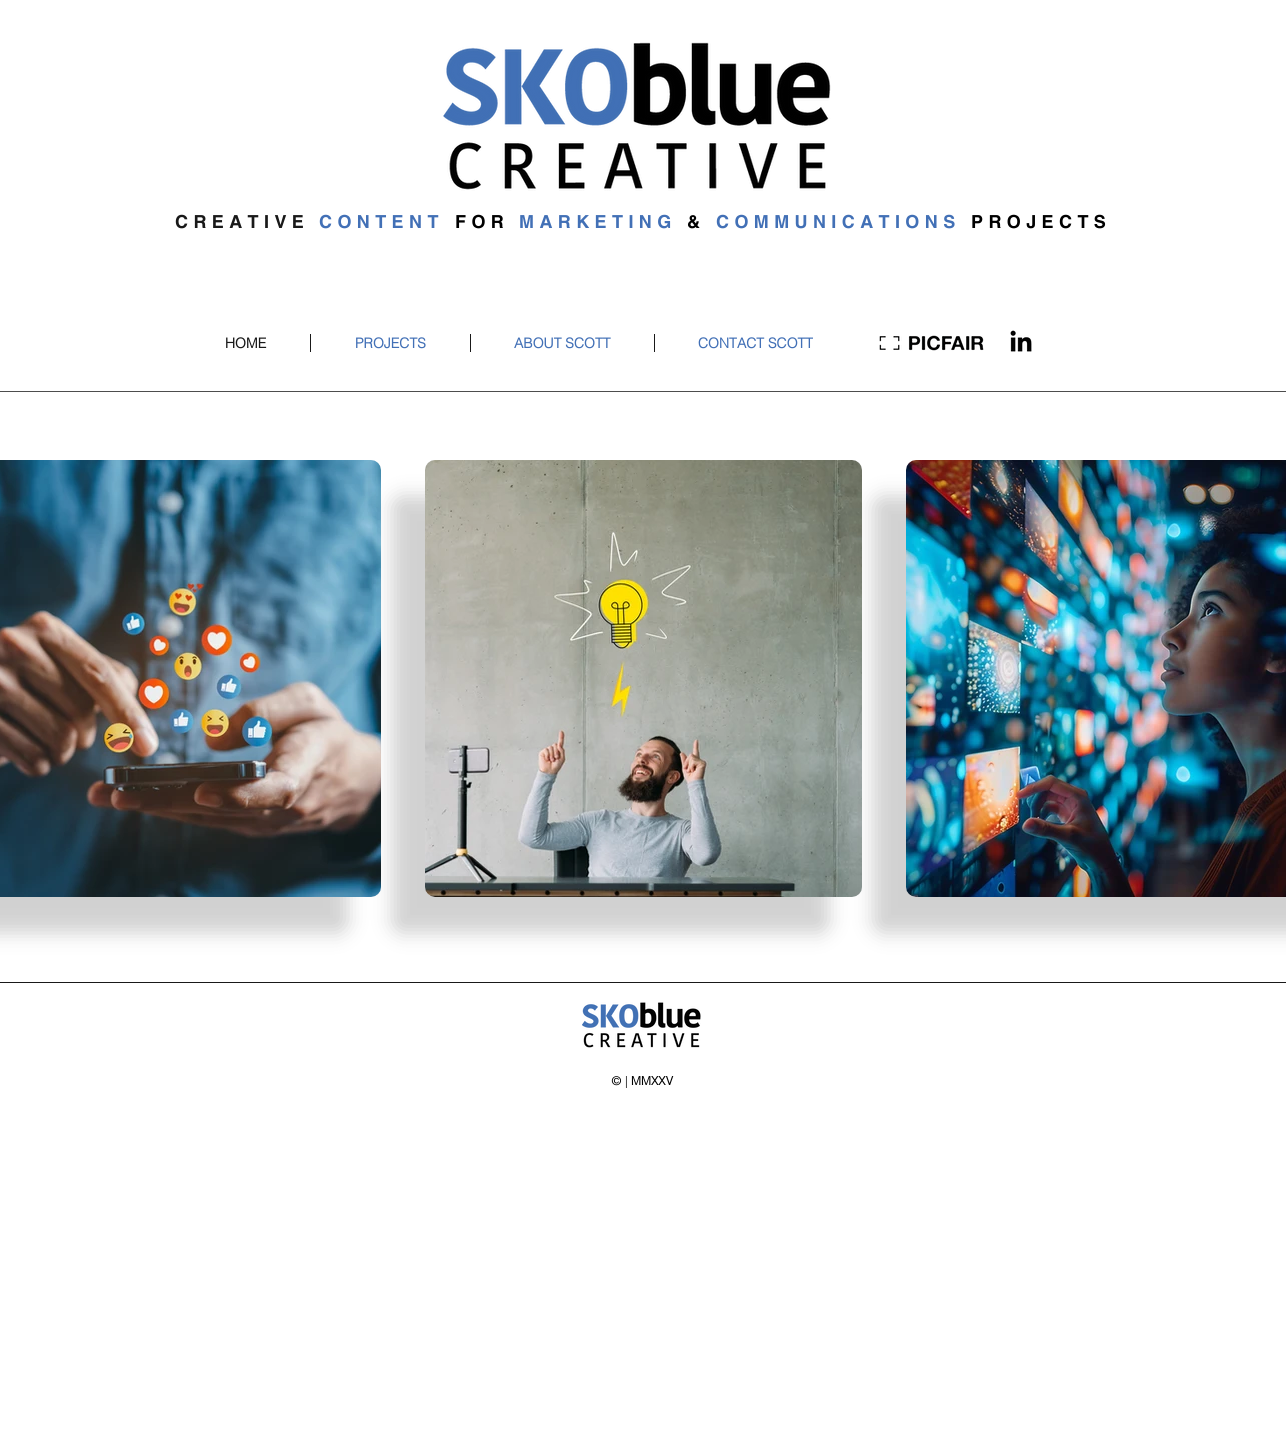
import math
import cairo

surface = cairo.ImageSurface(cairo.FORMAT_RGB24, 1286, 1431)
c = cairo.Context(surface)
options = cairo.FontOptions()
options.set_hint_metrics(cairo.HINT_METRICS_OFF)
options.set_hint_style(cairo.HINT_STYLE_NONE)
c.set_font_options(options)
c.set_miter_limit(4)
def C(code):
 c.set_source_rgb(*(v / 255 for v in bytes.fromhex(code[-6:])))
def F(family, size, italic, bold):
 c.select_font_face(family, cairo.FONT_SLANT_ITALIC if italic else cairo.FONT_SLANT_NORMAL, cairo.FONT_WEIGHT_BOLD if bold else cairo.FONT_WEIGHT_NORMAL)
 c.set_font_size(size)
def T(x, y, s):
 c.move_to(x, y)
 c.show_text(s)
def L(x, y, s, letter, word):
 c.move_to(x, y)
 for ch in s:
  c.show_text(ch)
  c.rel_move_to(letter + word * (ch == ' '), 0)
def R(x, y, w, h):
 c.rectangle(x, y, w, h)
 c.fill()
def Q(x, y, w, h, r):
 c.new_sub_path()
 for i, (u, v) in enumerate([(x + w - r, y + h - r), (x + r, y + h - r), (x + r, y + r), (x + w - r, y + r)]):
  c.arc(u, v, r, i * math.pi / 2, (i + 1) * math.pi / 2)
 c.close_path()
def S(x, y, w, h, r, blur, alpha):
 c.push_group_with_content(cairo.CONTENT_ALPHA)
 c.set_operator(cairo.OPERATOR_SOURCE)
 for i in range(15, -16, -2):
  e = blur * i / 6
  if min(w, h) + 2 * e > 0:
   c.set_source_rgba(0, 0, 0, alpha * math.erfc((i - 1) / 8.5) / 2)
   Q(x - e, y - e, w + 2 * e, h + 2 * e, max(0, min(r + e + blur * .6, min(w, h) / 2 + e)))
   c.fill()
 c.mask(c.pop_group())
def I(path, x, y, w, h):
 c.save()
 c.set_source_surface(cairo.ImageSurface.create_from_png(path), x, y)
 c.rectangle(x, y, w, h)
 c.fill()
 c.restore()
C('ffffff')
c.paint()
c.rectangle(-.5,-.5,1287,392)
C('4d4d4d')
c.set_line_width(1)
c.stroke()
I('1.png',443,42,388,149)
F('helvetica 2',18,0,1)
C('191919')
L(175,228,'CREATIVE',5.4,0)
C('4270b6')
L(319,228,'CONTENT',5.4,0)
C('000000')
L(455,228,'FOR',5.4,0)
C('4270b6')
L(519,228,'MARKETING',5.4,0)
C('000000')
L(687,228,'&',5.4,0)
C('4270b6')
L(716,228,'COMMUNICATIONS',5.4,0)
C('000000')
L(971,228,'PROJECTS',5.4,0)
F('helvetica',14,0,1)
C('191919')
T(225,348,'HOME')
R(310,334,1,18)
C('4270b6')
T(355,348,'PROJECTS')
C('191919')
R(470,334,1,18)
C('4270b6')
T(514,348,'ABOUT SCOTT')
C('191919')
R(654,334,1,18)
C('4270b6')
T(698,348,'CONTACT SCOTT')
I('2.png',879,335,105,16)
I('3.png',1010,330,22,22)
C('191919')
S(-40,496,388,437,10,10,.2)
C('f3f3f5')
c.new_path()
c.move_to(0,460)
c.line_to(371,460)
c.curve_to(376.5,460,381,464.5,381,470)
c.line_to(381,887)
c.curve_to(381,892.5,376.5,897,371,897)
c.line_to(0,897)
c.close_path()
c.fill()
I('4.png',0,460,381,437)
C('191919')
S(392,496,437,437,10,10,.2)
C('f3f3f5')
Q(425,460,437,437,10)
c.fill()
I('5.png',425,460,437,437)
C('191919')
S(873,496,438,437,10,10,.2)
C('f3f3f5')
c.new_path()
c.move_to(916,460)
c.line_to(1286,460)
c.line_to(1286,897)
c.line_to(916,897)
c.curve_to(910.5,897,906,892.5,906,887)
c.line_to(906,470)
c.curve_to(906,464.5,910.5,460,916,460)
c.close_path()
c.fill()
I('6.png',906,460,380,437)
C('191919')
R(0,982,1286,1)
I('7.png',582,1002,119,46)
F('helvetica',12,0,0)
C('000000')
T(612,1085,'©')
F('helvetica Light',12,0,0)
T(625,1085,'|')
F('helvetica',12,0,1)
T(631,1085,'MMXXV')
surface.write_to_png('o.png')
